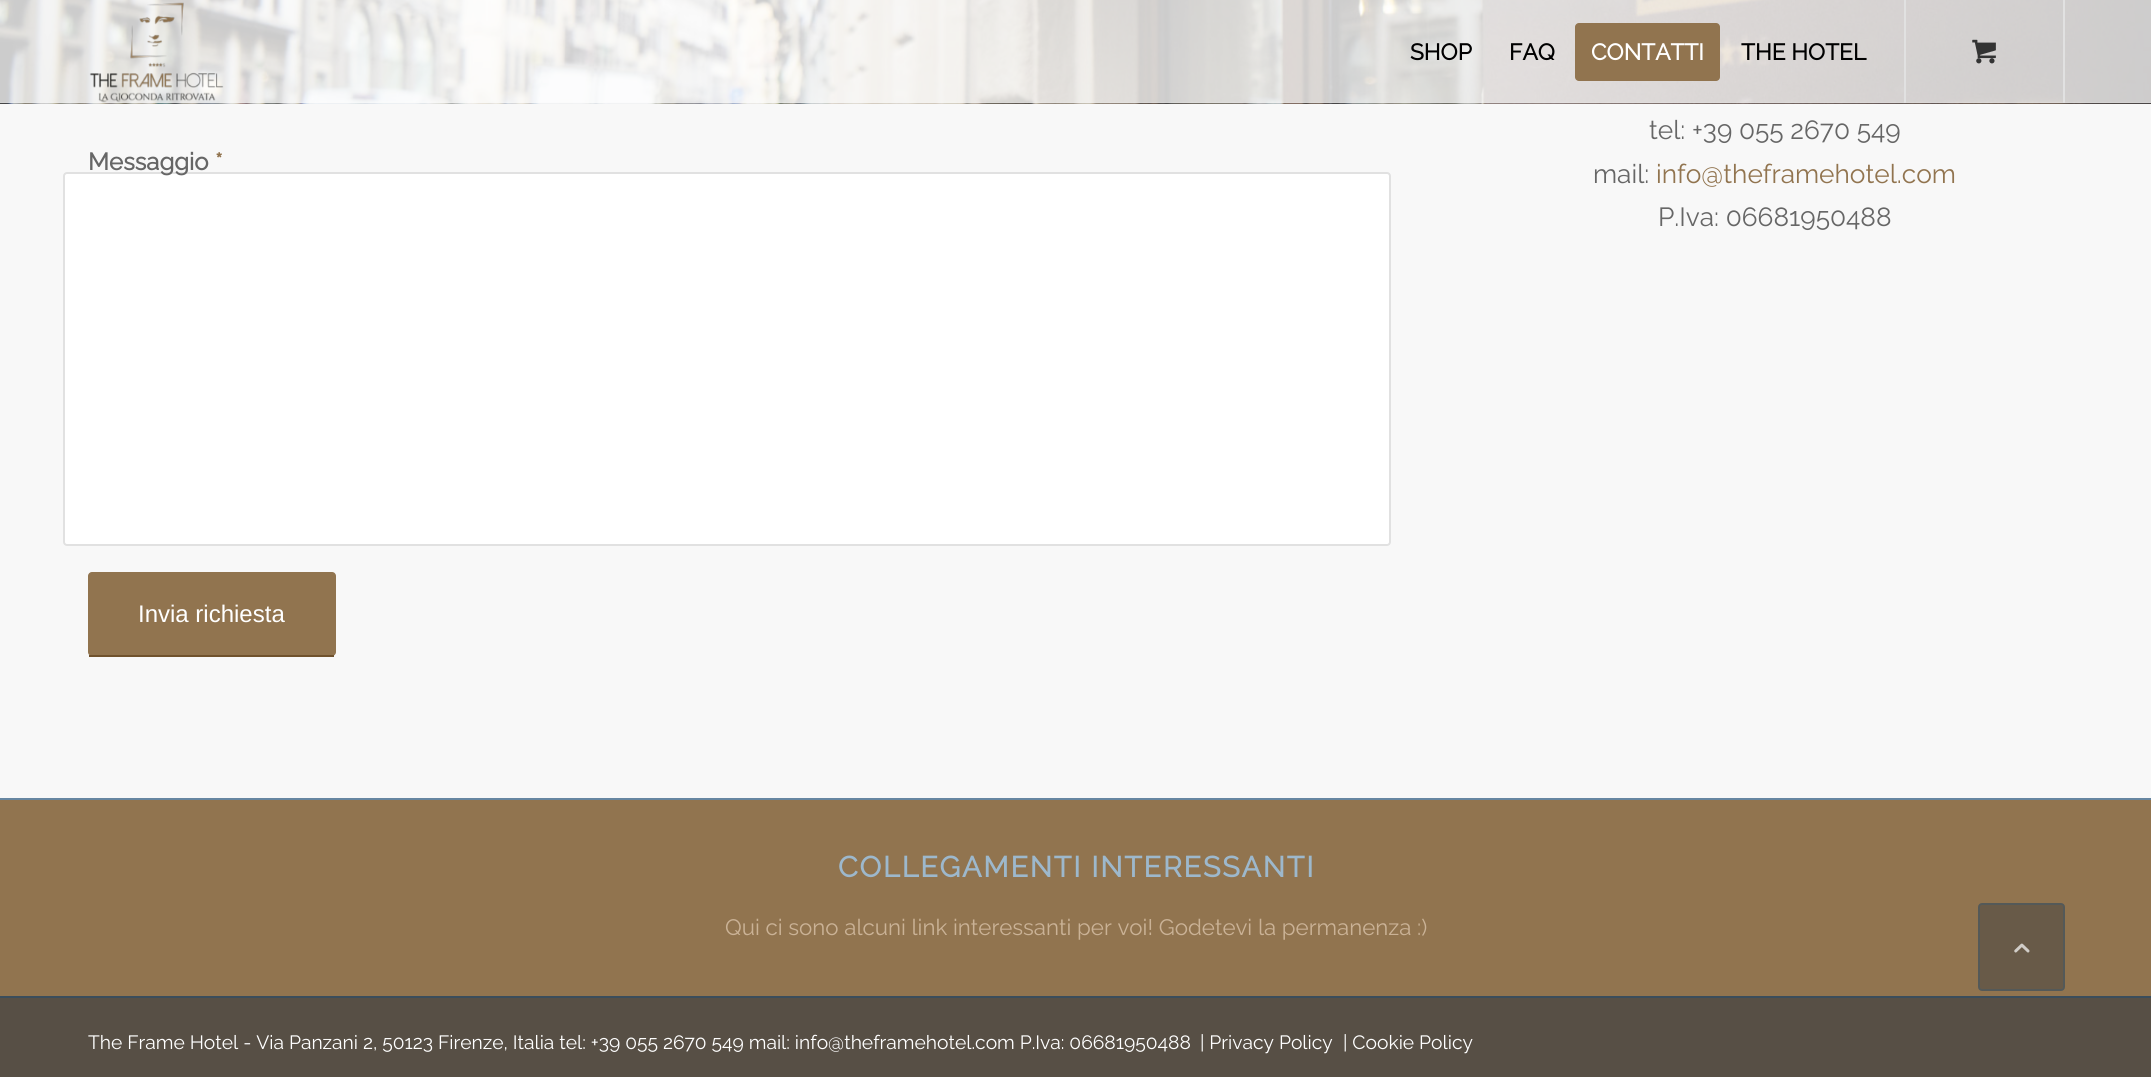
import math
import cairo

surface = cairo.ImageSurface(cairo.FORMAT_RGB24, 2151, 1077)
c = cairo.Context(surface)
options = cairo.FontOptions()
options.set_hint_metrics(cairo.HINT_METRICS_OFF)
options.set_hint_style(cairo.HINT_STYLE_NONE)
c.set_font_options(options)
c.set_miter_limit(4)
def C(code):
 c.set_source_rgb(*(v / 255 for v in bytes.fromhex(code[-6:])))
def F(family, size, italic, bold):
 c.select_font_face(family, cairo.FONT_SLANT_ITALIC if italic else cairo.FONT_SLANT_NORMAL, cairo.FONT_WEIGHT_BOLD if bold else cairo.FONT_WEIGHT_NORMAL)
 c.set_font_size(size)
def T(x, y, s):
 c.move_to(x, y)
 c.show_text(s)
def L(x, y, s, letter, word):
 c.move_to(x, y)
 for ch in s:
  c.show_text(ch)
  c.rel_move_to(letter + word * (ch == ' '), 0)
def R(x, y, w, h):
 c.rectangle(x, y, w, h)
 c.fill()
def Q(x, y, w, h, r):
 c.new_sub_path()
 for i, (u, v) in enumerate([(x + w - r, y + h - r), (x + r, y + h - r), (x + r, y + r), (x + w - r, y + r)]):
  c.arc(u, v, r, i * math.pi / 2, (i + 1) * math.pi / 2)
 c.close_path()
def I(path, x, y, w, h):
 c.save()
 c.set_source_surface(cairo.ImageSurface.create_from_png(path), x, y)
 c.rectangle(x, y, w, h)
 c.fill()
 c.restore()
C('f8f8f8')
c.paint()
I('1.png',0,0,2151,104)
I('2.png',89,2,135,101)
F('Raleway',22.75,0,1)
C('000000')
T(1410,60,'SHOP')
T(1509,60,'FAQ')
C('91744f')
Q(1575,23,145,58,4)
c.fill()
C('ffffff')
T(1591,60,'CONTATTI')
C('000000')
T(1741,60,'THE HOTEL')
C('e1e1e1')
R(2063,0,2,103)
R(1904,0,2,103)
I('3.png',1972,39,24,25)
C('ffffff')
Q(64,173,1326,372,3)
c.fill_preserve()
C('e1e1e1')
c.stroke()
F('Raleway',24,0,1)
C('666666')
T(88,170,'Messaggio')
C('91744f')
T(215,170,'*')
Q(88,572,248,84,4)
c.fill()
C('70522d')
R(89,655,245,2)
F('Liberation Sans',24,0,0)
C('ffffff')
T(138,622,'Invia richiesta')
F('Raleway Thin',26.25,0,0)
C('666666')
T(1649,139,'tel: +39 055 2670 549')
T(1593,183,'mail:')
C('91744f')
T(1656,183,'info@theframehotel.com')
C('666666')
T(1658,226,'P.Iva: 06681950488')
C('91744f')
R(0,800,2151,196)
C('6786a1')
R(0,798,2151,2)
F('Raleway',28.9,0,1)
C('9db8cc')
L(838,877,'COLLEGAMENTI INTERESSANTI',1.75,0)
F('Raleway Thin',22.3,0,0)
C('cab296')
T(725,935,'Qui ci sono alcuni link interessanti per voi! Godetevi la permanenza :)')
C('574f45')
R(0,998,2151,79)
C('3a4d5c')
R(0,996,2151,2)
F('Raleway Thin',19.25,0,0)
C('ffffff')
T(88,1049,'The Frame Hotel - Via Panzani 2, 50123 Firenze, Italia tel: +39 055 2670 549 mail: info@theframehotel.com P.Iva: 06681950488')
T(1200,1049,'| Privacy Policy')
T(1343,1049,'| Cookie Policy')
C('685a48')
Q(1979,904,85,86,3)
c.fill_preserve()
C('545958')
c.stroke()
I('4.png',2014,943,16,10)
surface.write_to_png('o.png')
